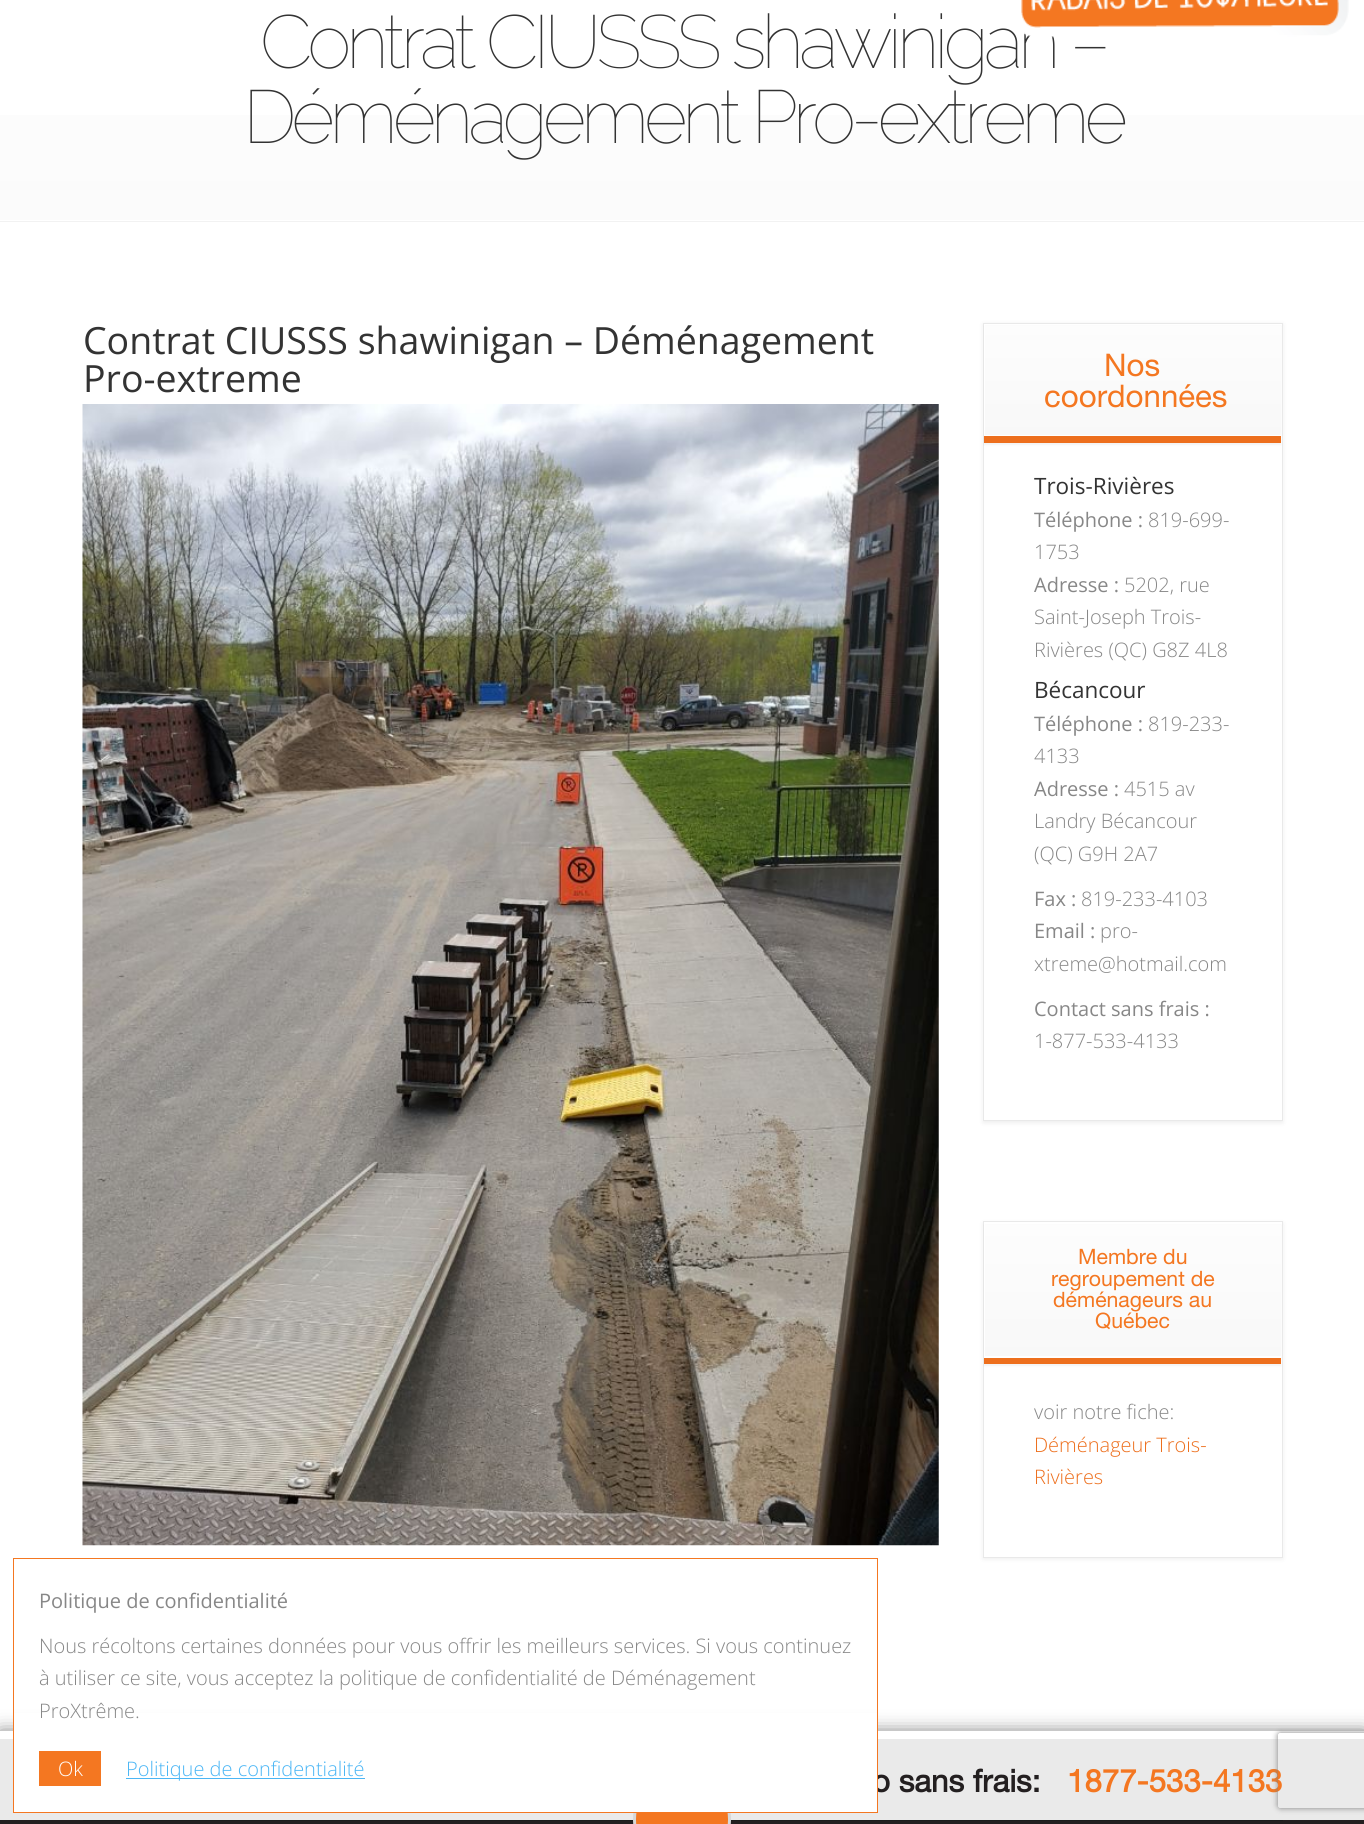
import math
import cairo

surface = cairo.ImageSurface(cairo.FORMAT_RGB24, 1364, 1824)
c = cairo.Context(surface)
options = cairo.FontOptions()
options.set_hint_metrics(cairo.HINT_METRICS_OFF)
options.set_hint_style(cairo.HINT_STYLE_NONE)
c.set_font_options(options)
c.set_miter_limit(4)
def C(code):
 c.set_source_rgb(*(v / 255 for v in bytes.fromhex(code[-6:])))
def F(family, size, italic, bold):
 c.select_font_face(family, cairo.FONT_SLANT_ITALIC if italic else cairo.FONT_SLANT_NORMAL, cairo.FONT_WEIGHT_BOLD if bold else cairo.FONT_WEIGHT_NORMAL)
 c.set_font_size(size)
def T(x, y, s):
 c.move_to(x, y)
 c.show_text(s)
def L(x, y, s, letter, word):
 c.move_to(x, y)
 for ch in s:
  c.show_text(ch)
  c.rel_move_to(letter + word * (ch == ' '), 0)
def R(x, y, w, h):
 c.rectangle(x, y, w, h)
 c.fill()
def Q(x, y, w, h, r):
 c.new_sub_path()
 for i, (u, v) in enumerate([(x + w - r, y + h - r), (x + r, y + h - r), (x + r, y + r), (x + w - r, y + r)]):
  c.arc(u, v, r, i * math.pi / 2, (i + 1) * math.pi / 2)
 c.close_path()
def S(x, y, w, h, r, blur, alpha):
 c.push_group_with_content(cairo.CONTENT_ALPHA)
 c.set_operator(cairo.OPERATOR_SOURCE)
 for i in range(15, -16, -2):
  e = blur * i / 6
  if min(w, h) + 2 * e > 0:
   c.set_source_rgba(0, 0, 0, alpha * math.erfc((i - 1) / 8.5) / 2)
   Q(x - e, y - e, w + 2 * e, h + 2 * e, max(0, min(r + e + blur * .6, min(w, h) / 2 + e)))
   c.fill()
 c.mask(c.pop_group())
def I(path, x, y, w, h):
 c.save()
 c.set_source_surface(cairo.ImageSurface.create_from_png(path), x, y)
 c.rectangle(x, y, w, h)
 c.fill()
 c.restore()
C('ffffff')
c.paint()
gradient = cairo.LinearGradient(683,-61,683,221)
gradient.add_color_stop_rgba(0,1,1,1,1)
gradient.add_color_stop_rgba(1,0.984,0.984,0.984,1)
c.set_source(gradient)
R(0,115,1364,105)
C('f2f2f2')
R(0,221,1364,1)
F('Raleway Thin',75,0,0)
C('333333')
L(260,68,'Contrat CIUSSS shawinigan –',-5,0)
L(243,143,'Déménagement Pro-extreme',-5,0)
I('1.png',1021,0,328,38)
F('Open Sans',37.5,0,0)
T(83,354,'Contrat CIUSSS shawinigan – Déménagement')
T(83,392,'Pro-extreme')
I('2.png',82,404,857,1142)
C('000000')
S(983,324,300,799,0,2.5,.07)
C('ffffff')
c.rectangle(983.5,323.5,299,797)
c.fill_preserve()
C('e9e9e9')
c.set_line_width(1)
c.stroke()
C('000000')
S(984,326,297,119,0,1,.05)
gradient = cairo.LinearGradient(1133,324,1133,436)
gradient.add_color_stop_rgba(0,0.992,0.992,0.992,1)
gradient.add_color_stop_rgba(1,0.973,0.973,0.973,1)
c.set_source(gradient)
R(985,326,296,109)
c.save()
c.rectangle(984,324,297,112)
c.clip()
C('ffffff')
c.set_fill_rule(cairo.FILL_RULE_EVEN_ODD)
c.new_path()
c.move_to(860,200)
c.line_to(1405,200)
c.line_to(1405,560)
c.line_to(860,560)
c.close_path()
c.move_to(985,322)
c.line_to(1282,322)
c.line_to(1282,435)
c.line_to(985,435)
c.close_path()
c.fill()
c.restore()
C('ed6f1d')
R(984,436,297,7)
F('Helvetica Neue',31.25,0,0)
C('f47721')
T(1104,376,'Nos')
T(1044,407,'coordonnées')
F('Open Sans',22.5,0,0)
C('333333')
T(1034,494,'Trois-Rivières')
F('Open Sans',20,0,0)
C('878787')
T(1034,527,'Téléphone :')
F('Open Sans Light',20,0,0)
T(1148,527,'819-699-')
T(1034,559,'1753')
F('Open Sans',20,0,0)
T(1034,592,'Adresse :')
F('Open Sans Light',20,0,0)
T(1124,592,'5202, rue')
T(1034,624,'Saint-Joseph Trois-')
T(1034,657,'Rivières (QC) G8Z 4L8')
F('Open Sans',22.5,0,0)
C('333333')
T(1034,698,'Bécancour')
F('Open Sans',20,0,0)
C('878787')
T(1034,731,'Téléphone :')
F('Open Sans Light',20,0,0)
T(1148,731,'819-233-')
T(1034,763,'4133')
F('Open Sans',20,0,0)
T(1034,796,'Adresse :')
F('Open Sans Light',20,0,0)
T(1124,796,'4515 av')
T(1034,828,'Landry Bécancour')
T(1034,861,'(QC) G9H 2A7')
F('Open Sans',20,0,0)
T(1034,906,'Fax :')
F('Open Sans Light',20,0,0)
T(1081,906,'819-233-4103')
F('Open Sans',20,0,0)
T(1034,938,'Email :')
F('Open Sans Light',20,0,0)
T(1100,938,'pro-')
T(1034,971,'xtreme@hotmail.com')
F('Open Sans',20,0,0)
T(1034,1016,'Contact sans frais :')
F('Open Sans Light',20,0,0)
T(1034,1048,'1-877-533-4133')
C('000000')
S(983,1223,300,336,0,2.5,.07)
C('ffffff')
c.rectangle(983.5,1221.5,299,336)
c.fill_preserve()
C('e9e9e9')
c.stroke()
C('000000')
S(984,1225,297,141,0,1,.05)
gradient = cairo.LinearGradient(1133,1223,1133,1358)
gradient.add_color_stop_rgba(0,0.992,0.992,0.992,1)
gradient.add_color_stop_rgba(1,0.973,0.973,0.973,1)
c.set_source(gradient)
R(985,1225,296,131)
c.save()
c.rectangle(984,1223,297,135)
c.clip()
C('ffffff')
c.set_fill_rule(cairo.FILL_RULE_EVEN_ODD)
c.new_path()
c.move_to(860,1099)
c.line_to(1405,1099)
c.line_to(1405,1481)
c.line_to(860,1481)
c.close_path()
c.move_to(985,1221)
c.line_to(1282,1221)
c.line_to(1282,1356)
c.line_to(985,1356)
c.close_path()
c.fill()
c.restore()
C('ed6f1d')
R(984,1358,297,6)
F('Helvetica Neue',21.25,0,0)
C('f47721')
T(1078,1264,'Membre du')
T(1051,1286,'regroupement de')
T(1053,1307,'déménageurs au')
T(1095,1328,'Québec')
F('Open Sans Light',20,0,0)
C('878787')
T(1034,1419,'voir notre fiche:')
C('ed6f1d')
T(1034,1452,'Déménageur Trois-')
T(1034,1484,'Rivières')
C('6a6a6a')
S(0,1733,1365,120,0,9.5,1)
C('eaeaea')
R(0,1739,1364,81)
C('ffffff')
R(0,1731,1364,8)
F('Helvetica Neue',31.25,0,1)
C('231f20')
T(872,1792,'o sans frais:')
R(0,1820,1364,4)
C('1c1c1c')
R(83,1820,1200,1)
C('f47721')
Q(634.5,1771.5,95,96,47.5)
c.fill_preserve()
C('d7d7d7')
c.set_line_width(3)
c.stroke()
C('ffffff')
R(14,1713,863,99)
c.rectangle(13.5,1558.5,864,254)
C('f47721')
c.set_line_width(1)
c.stroke()
F('Open Sans',20,0,0)
C('878787')
T(39,1608,'Politique de confidentialité')
F('Open Sans Light',20,0,0)
T(39,1653,'Nous récoltons certaines données pour vous offrir les meilleurs services. Si vous continuez')
T(39,1685,'à utiliser ce site, vous acceptez la politique de confidentialité de Déménagement')
T(39,1718,'ProXtrême.')
C('f47721')
R(39,1751,62,35)
C('ffffff')
T(58,1776,'Ok')
C('4bb6f5')
R(126,1778,239,1)
T(126,1776,'Politique de confidentialité')
F('Helvetica Neue',31.25,0,1)
C('f47721')
T(1067,1792,'1877-533-4133')
c.save()
c.set_fill_rule(cairo.FILL_RULE_EVEN_ODD)
c.new_path()
c.move_to(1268,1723)
c.line_to(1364,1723)
c.line_to(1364,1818)
c.line_to(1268,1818)
c.close_path()
c.move_to(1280.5,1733)
c.line_to(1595.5,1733)
c.curve_to(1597,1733,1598,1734,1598,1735.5)
c.line_to(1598,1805.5)
c.curve_to(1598,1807,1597,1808,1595.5,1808)
c.line_to(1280.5,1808)
c.curve_to(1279,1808,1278,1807,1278,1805.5)
c.line_to(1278,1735.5)
c.curve_to(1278,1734,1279,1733,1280.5,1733)
c.close_path()
c.clip()
C('808080')
S(1278,1733,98,75,2.5,3,1)
c.restore()
surface.write_to_png('o.png')
